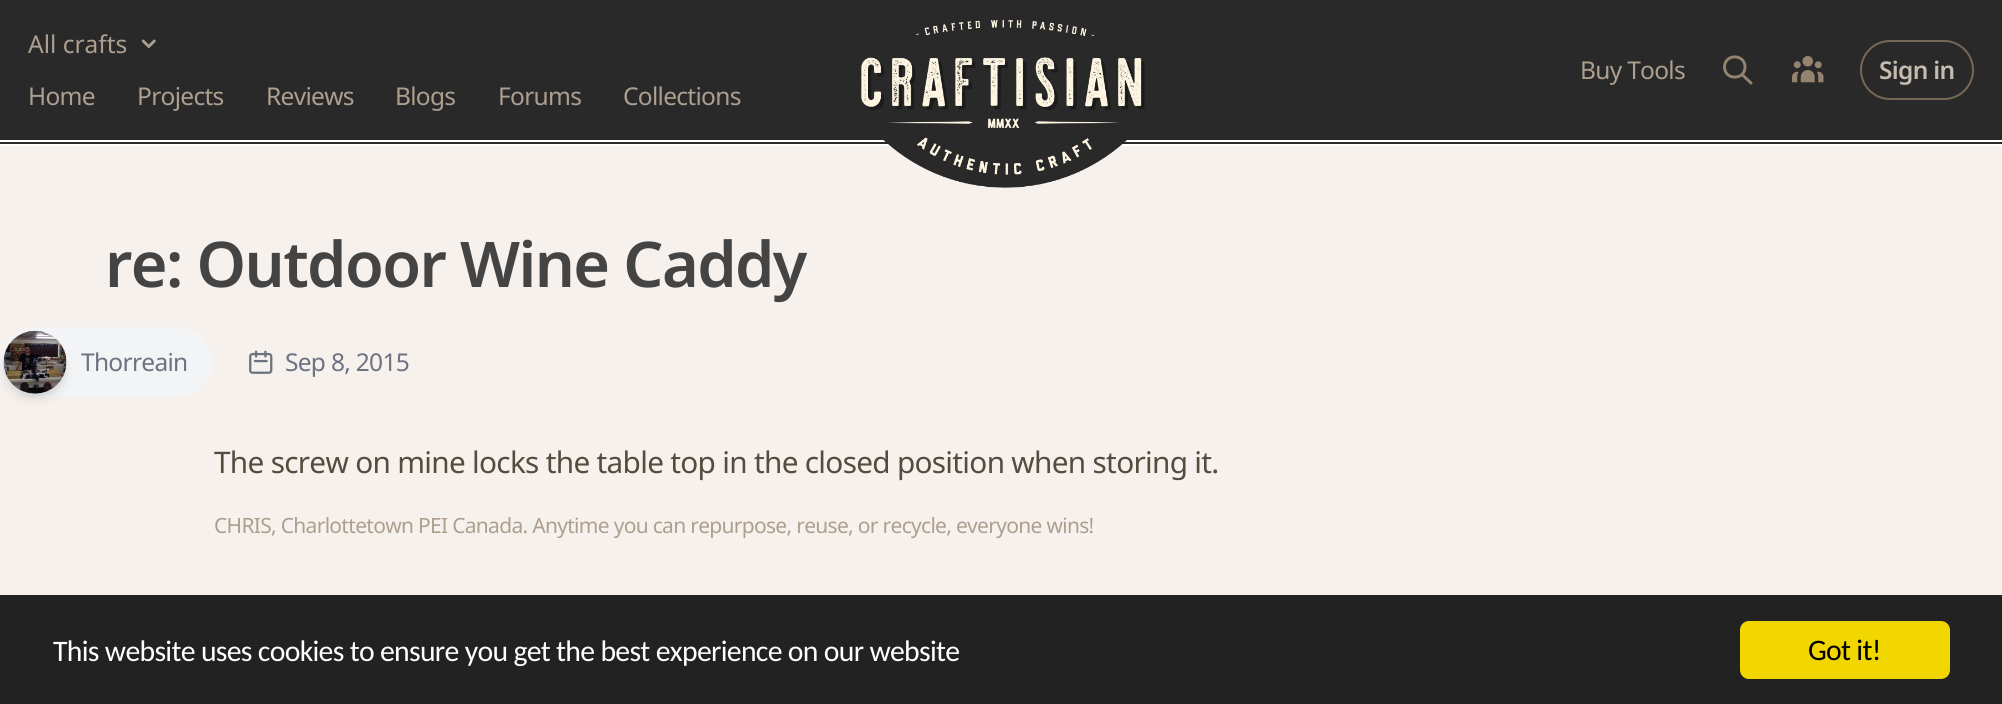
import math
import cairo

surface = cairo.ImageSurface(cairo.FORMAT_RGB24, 2002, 704)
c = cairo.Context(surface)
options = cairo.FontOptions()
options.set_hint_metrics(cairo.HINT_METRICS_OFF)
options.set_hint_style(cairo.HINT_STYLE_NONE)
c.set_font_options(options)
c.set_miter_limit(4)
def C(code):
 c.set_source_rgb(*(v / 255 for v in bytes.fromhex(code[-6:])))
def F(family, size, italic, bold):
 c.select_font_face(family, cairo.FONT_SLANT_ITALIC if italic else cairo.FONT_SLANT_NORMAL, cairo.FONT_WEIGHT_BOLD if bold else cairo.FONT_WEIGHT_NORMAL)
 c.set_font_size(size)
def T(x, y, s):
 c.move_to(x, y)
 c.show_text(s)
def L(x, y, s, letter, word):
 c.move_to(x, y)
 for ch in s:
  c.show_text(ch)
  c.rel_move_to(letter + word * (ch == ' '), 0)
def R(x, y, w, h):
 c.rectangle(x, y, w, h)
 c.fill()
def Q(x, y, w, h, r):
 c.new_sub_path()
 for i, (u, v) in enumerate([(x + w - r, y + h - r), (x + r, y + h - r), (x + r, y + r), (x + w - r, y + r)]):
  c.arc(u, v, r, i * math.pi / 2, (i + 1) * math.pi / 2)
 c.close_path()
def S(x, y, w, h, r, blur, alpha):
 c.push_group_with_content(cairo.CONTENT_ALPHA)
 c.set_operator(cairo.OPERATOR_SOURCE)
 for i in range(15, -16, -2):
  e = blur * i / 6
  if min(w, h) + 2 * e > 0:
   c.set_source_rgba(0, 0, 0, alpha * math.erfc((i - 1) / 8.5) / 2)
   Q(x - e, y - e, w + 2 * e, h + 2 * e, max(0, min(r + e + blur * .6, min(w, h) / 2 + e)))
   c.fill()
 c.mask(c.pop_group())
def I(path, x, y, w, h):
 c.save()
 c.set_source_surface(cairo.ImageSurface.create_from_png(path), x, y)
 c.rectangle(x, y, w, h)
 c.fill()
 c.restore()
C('f7f1ed')
c.paint()
C('292929')
R(0,0,2002,144)
C('ffffff')
R(0,140,2002,2)
R(0,144,2002,2)
F('Noto Sans',24.5,0,0)
C('ad9f90')
T(28,53,'All crafts')
I('1.png',141,39,15,9)
L(28,105,'Home',-.7,0)
L(137,105,'Projects',-.7,0)
L(266,105,'Reviews',-.7,0)
L(395,105,'Blogs',-.7,0)
L(498,105,'Forums',-.7,0)
L(623,105,'Collections',-.7,0)
I('2.png',861,20,284,168)
L(1580,79,'Buy Tools',-.7,0)
c.new_path()
c.move_to(1751,83)
c.line_to(1742,74.5)
c.move_to(1745,67)
c.curve_to(1745,80.5,1724.5,80.5,1724.5,67)
c.curve_to(1724.5,53.5,1745,53.5,1745,67)
c.close_path()
C('958370')
c.set_line_width(2.9)
c.set_line_cap(cairo.LINE_CAP_ROUND)
c.set_line_join(cairo.LINE_JOIN_ROUND)
c.stroke()
I('3.png',1792,56,32,27)
Q(1861,41,112,58,29)
C('766757')
c.set_line_width(2)
c.set_line_cap(cairo.LINE_CAP_BUTT)
c.set_line_join(cairo.LINE_JOIN_MITER)
c.stroke()
F('Noto Sans SemiBold',24.5,0,0)
C('c5bbb1')
L(1879,79,'Sign in',-.7,0)
F('Noto Sans SemiBold',63,0,0)
C('444444')
L(105,287,'re: Outdoor Wine Caddy',-1.6,0)
C('f3f4f6')
Q(0,327,212,70,35)
c.fill()
C('000000')
S(7,338,56,56,28,3.5,.1)
S(5,340,60,59,29.5,5,.1)
I('4.png',3,330,64,64)
c.save()
c.rectangle(81,348,106,28)
c.clip()
F('Noto Sans',24.5,0,0)
C('6b7280')
L(81,371,'Thorreain',-.7,0)
c.restore()
I('5.png',249,350,24,24)
F('Noto Sans',24.5,0,0)
C('6b7280')
L(285,371,'Sep 8, 2015',-.7,0)
F('Noto Sans',29.75,0,0)
C('564b3f')
L(214,473,'The screw on mine locks the table top in the closed position when storing it.',-.7,0)
F('Noto Sans',21,0,0)
C('ad9f90')
L(214,533,'CHRIS, Charlottetown PEI Canada. Anytime you can repurpose, reuse, or recycle, everyone wins!',-.7,0)
C('222222')
R(0,595,2002,109)
F('Carlito',29.75,0,0)
C('ffffff')
L(53,661,'This website uses cookies to ensure you get the best experience on our website',-.7,0)
C('f1d600')
Q(1740,621,210,58,9)
c.fill()
C('000000')
L(1808,660,'Got it!',-.7,0)
surface.write_to_png('o.png')
